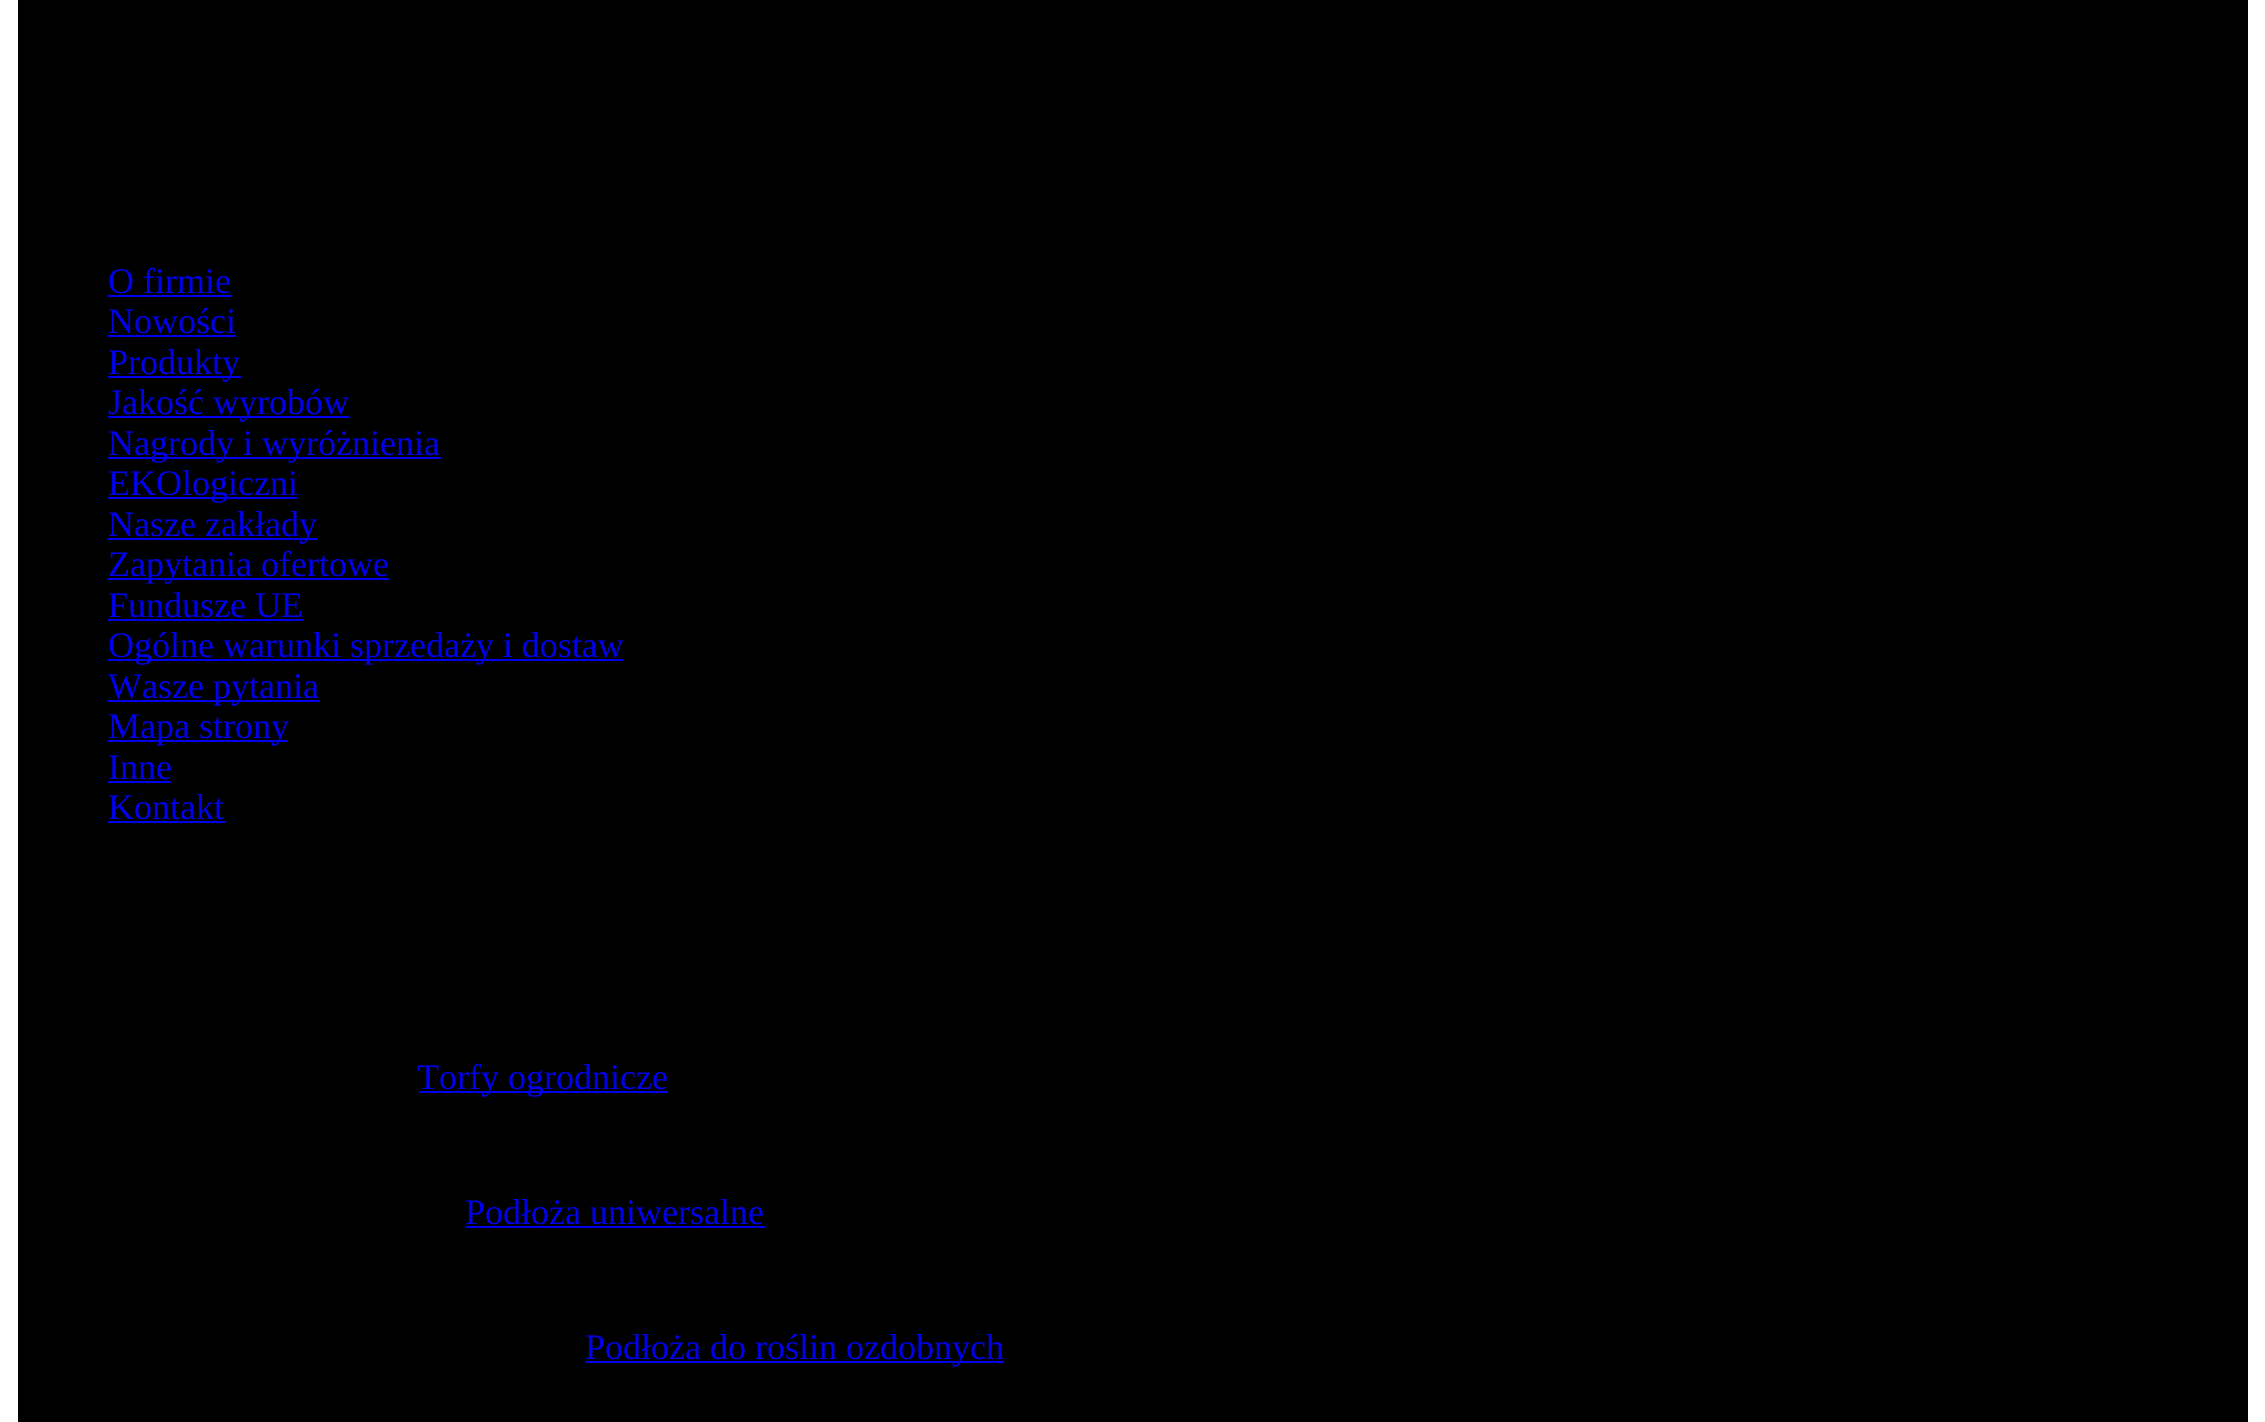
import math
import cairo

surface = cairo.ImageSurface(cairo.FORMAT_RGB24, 2265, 1422)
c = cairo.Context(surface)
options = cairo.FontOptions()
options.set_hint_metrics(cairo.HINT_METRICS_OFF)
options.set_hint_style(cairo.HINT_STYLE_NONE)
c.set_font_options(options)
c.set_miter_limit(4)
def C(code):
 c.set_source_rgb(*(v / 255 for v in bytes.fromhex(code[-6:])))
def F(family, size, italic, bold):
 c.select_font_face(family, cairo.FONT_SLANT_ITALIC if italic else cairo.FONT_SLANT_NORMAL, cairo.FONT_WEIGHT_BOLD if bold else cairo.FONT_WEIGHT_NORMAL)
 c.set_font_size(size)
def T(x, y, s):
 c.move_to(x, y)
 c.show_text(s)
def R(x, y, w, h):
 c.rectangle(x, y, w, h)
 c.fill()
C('ffffff')
c.paint()
C('000000')
R(18,0,2230,1422)
F('Liberation Serif',36,0,0)
C('0000ee')
T(108,293,'O firmie')
R(108,295,124,2)
T(108,333,'Nowości')
R(108,335,128,2)
R(108,376,133,2)
T(108,374,'Produkty')
R(108,416,241,2)
T(108,414,'Jakość wyrobów')
R(108,457,333,2)
T(108,455,'Nagrody i wyróżnienia')
R(108,497,189,2)
T(108,495,'EKOlogiczni')
R(108,538,209,2)
T(108,536,'Nasze zakłady')
R(108,578,281,2)
T(108,576,'Zapytania ofertowe')
T(108,617,'Fundusze UE')
R(108,619,196,2)
R(108,659,515,2)
T(108,657,'Ogólne warunki sprzedaży i dostaw')
R(108,700,212,2)
T(108,698,'Wasze pytania')
R(108,740,180,2)
T(108,738,'Mapa strony')
T(108,779,'Inne')
R(108,781,63,2)
T(108,819,'Kontakt')
R(108,821,117,2)
R(419,1091,249,2)
T(417,1089,'Torfy ogrodnicze')
T(465,1224,'Podłoża uniwersalne')
R(466,1226,299,2)
R(585,1361,419,2)
T(585,1359,'Podłoża do roślin ozdobnych')
surface.write_to_png('o.png')
